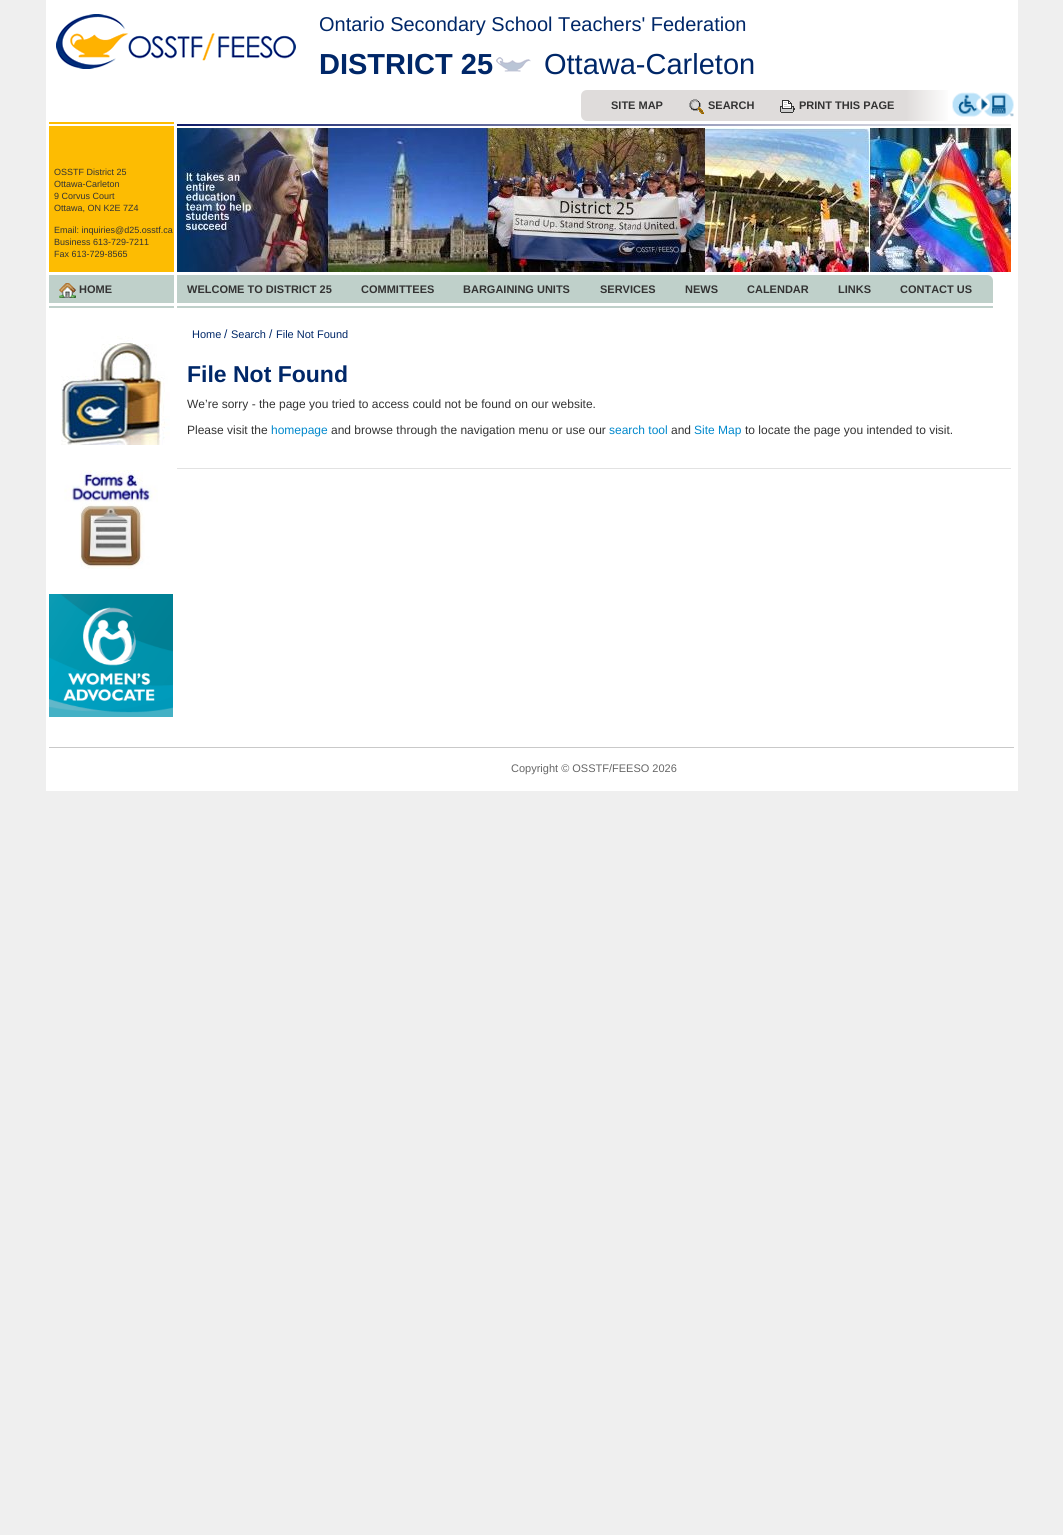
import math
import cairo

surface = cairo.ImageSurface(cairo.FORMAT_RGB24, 1063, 1535)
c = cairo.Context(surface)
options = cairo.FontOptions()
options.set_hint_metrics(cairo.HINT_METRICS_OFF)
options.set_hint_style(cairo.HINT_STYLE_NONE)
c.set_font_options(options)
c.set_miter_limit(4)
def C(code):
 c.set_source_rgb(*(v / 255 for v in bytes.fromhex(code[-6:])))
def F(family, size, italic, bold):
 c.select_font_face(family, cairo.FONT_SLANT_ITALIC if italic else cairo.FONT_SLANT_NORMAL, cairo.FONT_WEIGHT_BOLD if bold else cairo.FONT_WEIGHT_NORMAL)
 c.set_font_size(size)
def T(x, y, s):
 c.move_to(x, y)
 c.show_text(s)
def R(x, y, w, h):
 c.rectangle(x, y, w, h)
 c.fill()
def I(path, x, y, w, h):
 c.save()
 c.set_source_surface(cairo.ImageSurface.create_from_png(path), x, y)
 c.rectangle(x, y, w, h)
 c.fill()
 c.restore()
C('efefef')
c.paint()
C('ffffff')
R(46,0,972,791)
I('1.png',56,14,240,55)
F('Liberation Sans',20,0,0)
C('002768')
T(319,31,'Ontario Secondary School Teachers\' Federation')
F('Liberation Sans',29,0,1)
T(319,74,'DISTRICT 25')
I('2.png',496,57,35,15)
F('Liberation Sans',29,0,0)
T(544,74,'Ottawa-Carleton')
C('dfdcdb')
c.new_path()
c.move_to(587,90)
c.line_to(678,90)
c.line_to(678,121)
c.line_to(587,121)
c.curve_to(583.5,121,581,118.5,581,115)
c.line_to(581,96)
c.curve_to(581,92.5,583.5,90,587,90)
c.close_path()
c.fill()
F('Liberation Sans',11,0,1)
C('333333')
T(611,109,'SITE MAP')
C('dfdcdb')
R(678,90,228,31)
I('3.png',689,99,15,15)
C('333333')
T(708,109,'SEARCH')
I('4.png',780,100,15,13)
T(799,109,'PRINT THIS PAGE')
gradient = cairo.LinearGradient(906,106,951,106)
gradient.add_color_stop_rgba(0,0.875,0.863,0.859,1)
gradient.add_color_stop_rgba(1,1,1,1,1)
c.set_source(gradient)
R(906,90,42,31)
I('5.png',952,92,62,25)
C('fdbc02')
R(49,122,125,2)
R(49,126,125,146)
F('Liberation Sans',9,0,0)
C('333333')
T(54,175,'OSSTF District 25')
T(54,187,'Ottawa-Carleton')
T(54,199,'9 Corvus Court')
T(54,211,'Ottawa, ON K2E 7Z4')
T(54,233,'Email: inquiries@d25.osstf.ca')
T(54,245,'Business 613-729-7211')
T(54,257,'Fax 613-729-8565')
gradient = cairo.LinearGradient(177,198,1011,198)
gradient.add_color_stop_rgba(0,0.059,0.11,0.412,1)
gradient.add_color_stop_rgba(1,0.941,0.941,0.941,1)
c.set_source(gradient)
R(177,124,834,2)
I('6.png',177,128,834,144)
C('bfd0ca')
R(49,306,125,2)
R(49,275,125,28)
I('7.png',59,283,17,15)
F('Liberation Sans',11,0,1)
C('333333')
T(79,293,'HOME')
C('bfd0ca')
R(177,306,816,2)
R(177,275,713,28)
C('333333')
T(187,293,'WELCOME TO DISTRICT 25')
T(361,293,'COMMITTEES')
T(463,293,'BARGAINING UNITS')
T(600,293,'SERVICES')
T(685,293,'NEWS')
T(747,293,'CALENDAR')
T(838,293,'LINKS')
C('bfd0ca')
c.new_path()
c.move_to(890,275)
c.line_to(987,275)
c.curve_to(990.5,275,993,277.5,993,281)
c.line_to(993,303)
c.line_to(890,303)
c.close_path()
c.fill()
C('333333')
T(900,293,'CONTACT US')
I('8.png',61,336,109,109)
I('9.png',64,470,94,99)
I('10.png',49,594,124,123)
F('Liberation Sans',11,0,0)
C('002768')
T(192,338,'Home')
F('Liberation Sans',12,0,0)
T(224,338,'/')
F('Liberation Sans',11,0,0)
T(231,338,'Search')
F('Liberation Sans',12,0,0)
T(269,338,'/')
F('Liberation Sans',11,0,0)
T(276,338,'File Not Found')
F('Liberation Sans',23,0,1)
T(187,382,'File Not Found')
C('e2e2e2')
R(177,468,834,1)
F('Liberation Sans',12,0,0)
C('333333')
T(187,408,'We’re sorry - the page you tried to access could not be found on our website.')
T(187,434,'Please visit the')
C('0088cc')
T(271,434,'homepage')
C('333333')
T(331,434,'and browse through the navigation menu or use our')
C('0088cc')
T(609,434,'search tool')
C('333333')
T(671,434,'and')
C('0088cc')
T(694,434,'Site Map')
C('333333')
T(745,434,'to locate the page you intended to visit.')
C('c9c9c9')
R(49,747,965,1)
F('Liberation Sans',11,0,0)
C('666666')
T(511,772,'Copyright © OSSTF/FEESO 2026')
surface.write_to_png('o.png')
